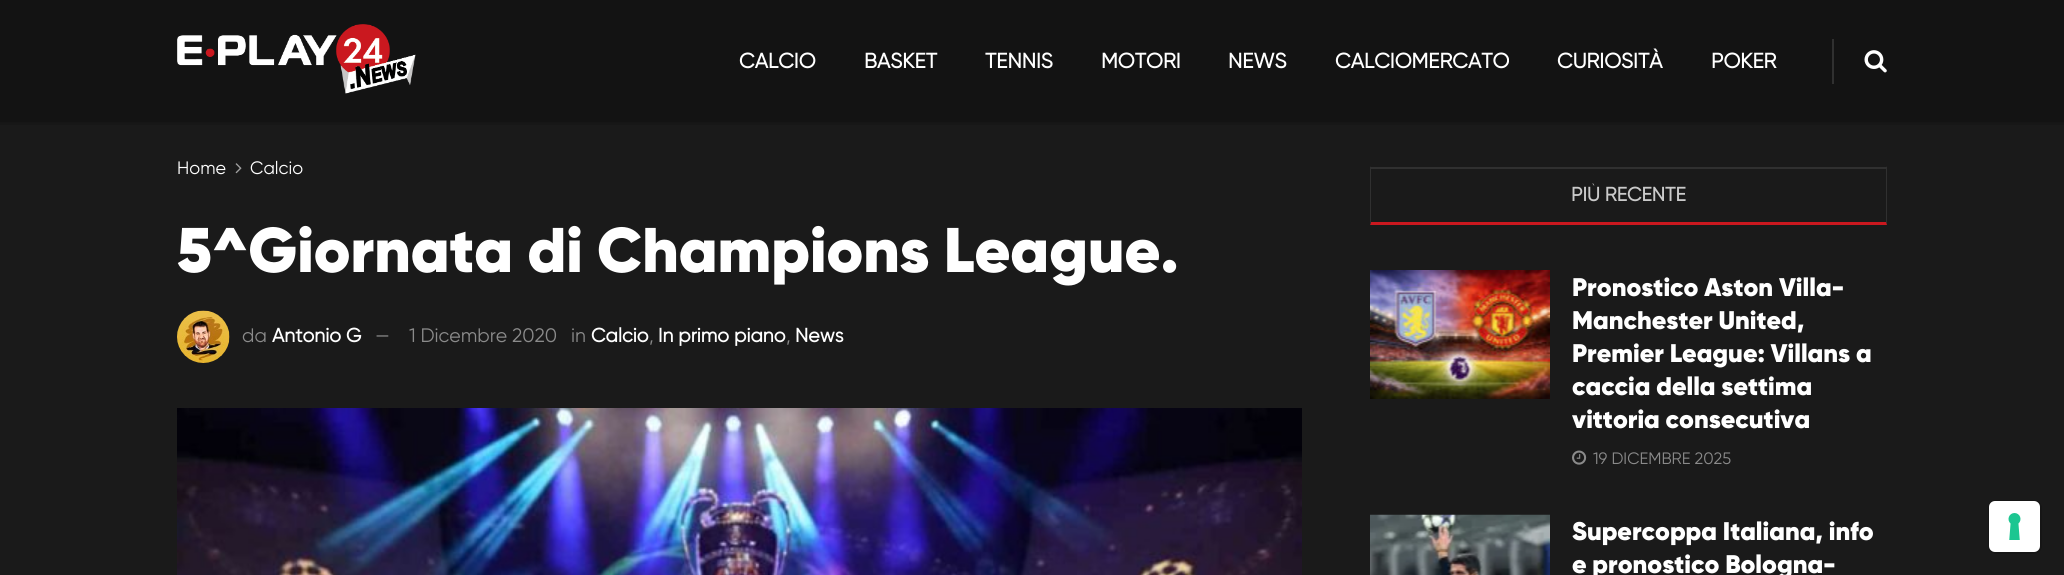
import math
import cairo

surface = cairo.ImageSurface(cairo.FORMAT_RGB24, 2064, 575)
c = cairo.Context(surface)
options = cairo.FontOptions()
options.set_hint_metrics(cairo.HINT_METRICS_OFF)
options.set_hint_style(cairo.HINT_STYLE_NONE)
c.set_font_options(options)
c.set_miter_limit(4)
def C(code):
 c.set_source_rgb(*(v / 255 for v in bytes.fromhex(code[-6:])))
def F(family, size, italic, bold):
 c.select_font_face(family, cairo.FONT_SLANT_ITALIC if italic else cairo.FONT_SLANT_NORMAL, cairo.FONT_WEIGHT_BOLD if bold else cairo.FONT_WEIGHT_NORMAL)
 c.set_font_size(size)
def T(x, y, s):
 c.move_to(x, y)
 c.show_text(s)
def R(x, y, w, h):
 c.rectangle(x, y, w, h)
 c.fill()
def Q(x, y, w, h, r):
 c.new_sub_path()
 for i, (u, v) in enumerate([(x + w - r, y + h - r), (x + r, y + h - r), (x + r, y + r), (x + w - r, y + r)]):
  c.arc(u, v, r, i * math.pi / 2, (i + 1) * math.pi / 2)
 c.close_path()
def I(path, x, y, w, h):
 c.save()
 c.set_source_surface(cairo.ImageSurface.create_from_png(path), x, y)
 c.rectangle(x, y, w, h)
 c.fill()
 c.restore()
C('1a1a1a')
c.paint()
C('131313')
R(0,0,2064,122)
I('1.png',177,24,239,70)
F('Gilroy',21,0,1)
C('ffffff')
T(739,68,'CALCIO')
T(864,68,'BASKET')
T(985,68,'TENNIS')
T(1101,68,'MOTORI')
T(1228,68,'NEWS')
T(1335,68,'CALCIOMERCATO')
T(1557,68,'CURIOSITÀ')
T(1711,68,'POKER')
C('303030')
R(1832,39,2,45)
I('2.png',1864,50,23,23)
gradient = cairo.LinearGradient(1032,121,1032,132)
gradient.add_color_stop_rgba(0,0.086,0.086,0.086,1)
gradient.add_color_stop_rgba(1,0.102,0.102,0.102,1)
c.set_source(gradient)
R(0,122,2064,3)
F('Gilroy',18,0,0)
C('ffffff')
T(177,174,'Home')
I('3.png',235,163,7,11)
T(250,174,'Calcio')
F('Gilroy Black',63,0,0)
T(177,272,'5^Giornata di Champions League.')
I('4.png',177,310,53,53)
F('Gilroy',19.5,0,0)
C('8b8b8b')
T(242,342,'da')
F('Gilroy',19.5,0,1)
C('ffffff')
T(272,342,'Antonio G')
F('Gilroy',19.5,0,0)
C('8b8b8b')
T(375,342,'—')
T(409,342,'1 Dicembre 2020')
T(571,342,'in')
F('Gilroy',19.5,0,1)
C('ffffff')
T(591,342,'Calcio')
F('Gilroy',19.5,0,0)
C('8b8b8b')
T(649,342,',')
F('Gilroy',19.5,0,1)
C('ffffff')
T(658,342,'In primo piano')
F('Gilroy',19.5,0,0)
C('8b8b8b')
T(786,342,',')
F('Gilroy',19.5,0,1)
C('ffffff')
T(795,342,'News')
I('5.png',177,408,1125,167)
C('303030')
R(1370,167,517,2)
c.new_path()
c.move_to(1887,166)
c.line_to(1887,225)
c.line_to(1886,222)
c.line_to(1886,168)
c.close_path()
c.fill()
C('ca181f')
c.new_path()
c.move_to(1887,225)
c.line_to(1370,225)
c.line_to(1371,222)
c.line_to(1886,222)
c.close_path()
c.fill()
C('303030')
c.new_path()
c.move_to(1370,225)
c.line_to(1370,166)
c.line_to(1371,168)
c.line_to(1371,222)
c.close_path()
c.fill()
C('cacaca')
T(1571,201,'PIÙ RECENTE')
I('6.png',1370,270,180,129)
F('Gilroy Black',25.5,0,0)
C('ffffff')
T(1572,296,'Pronostico Aston Villa-')
T(1572,329,'Manchester United,')
T(1572,362,'Premier League: Villans a')
T(1572,395,'caccia della settima')
T(1572,428,'vittoria consecutiva')
I('7.png',1572,450,15,15)
F('Gilroy',16.5,0,0)
C('8b8b8b')
T(1593,464,'19 DICEMBRE 2025')
I('8.png',1370,514,180,61)
F('Gilroy Black',25.5,0,0)
C('ffffff')
T(1572,540,'Supercoppa Italiana, info')
T(1572,573,'e pronostico Bologna-')
Q(1989,501,52,52,7)
C('161616')
c.stroke()
C('ffffff')
Q(1989,501,51,51,6)
c.fill()
I('9.png',2008,513,13,27)
surface.write_to_png('o.png')
